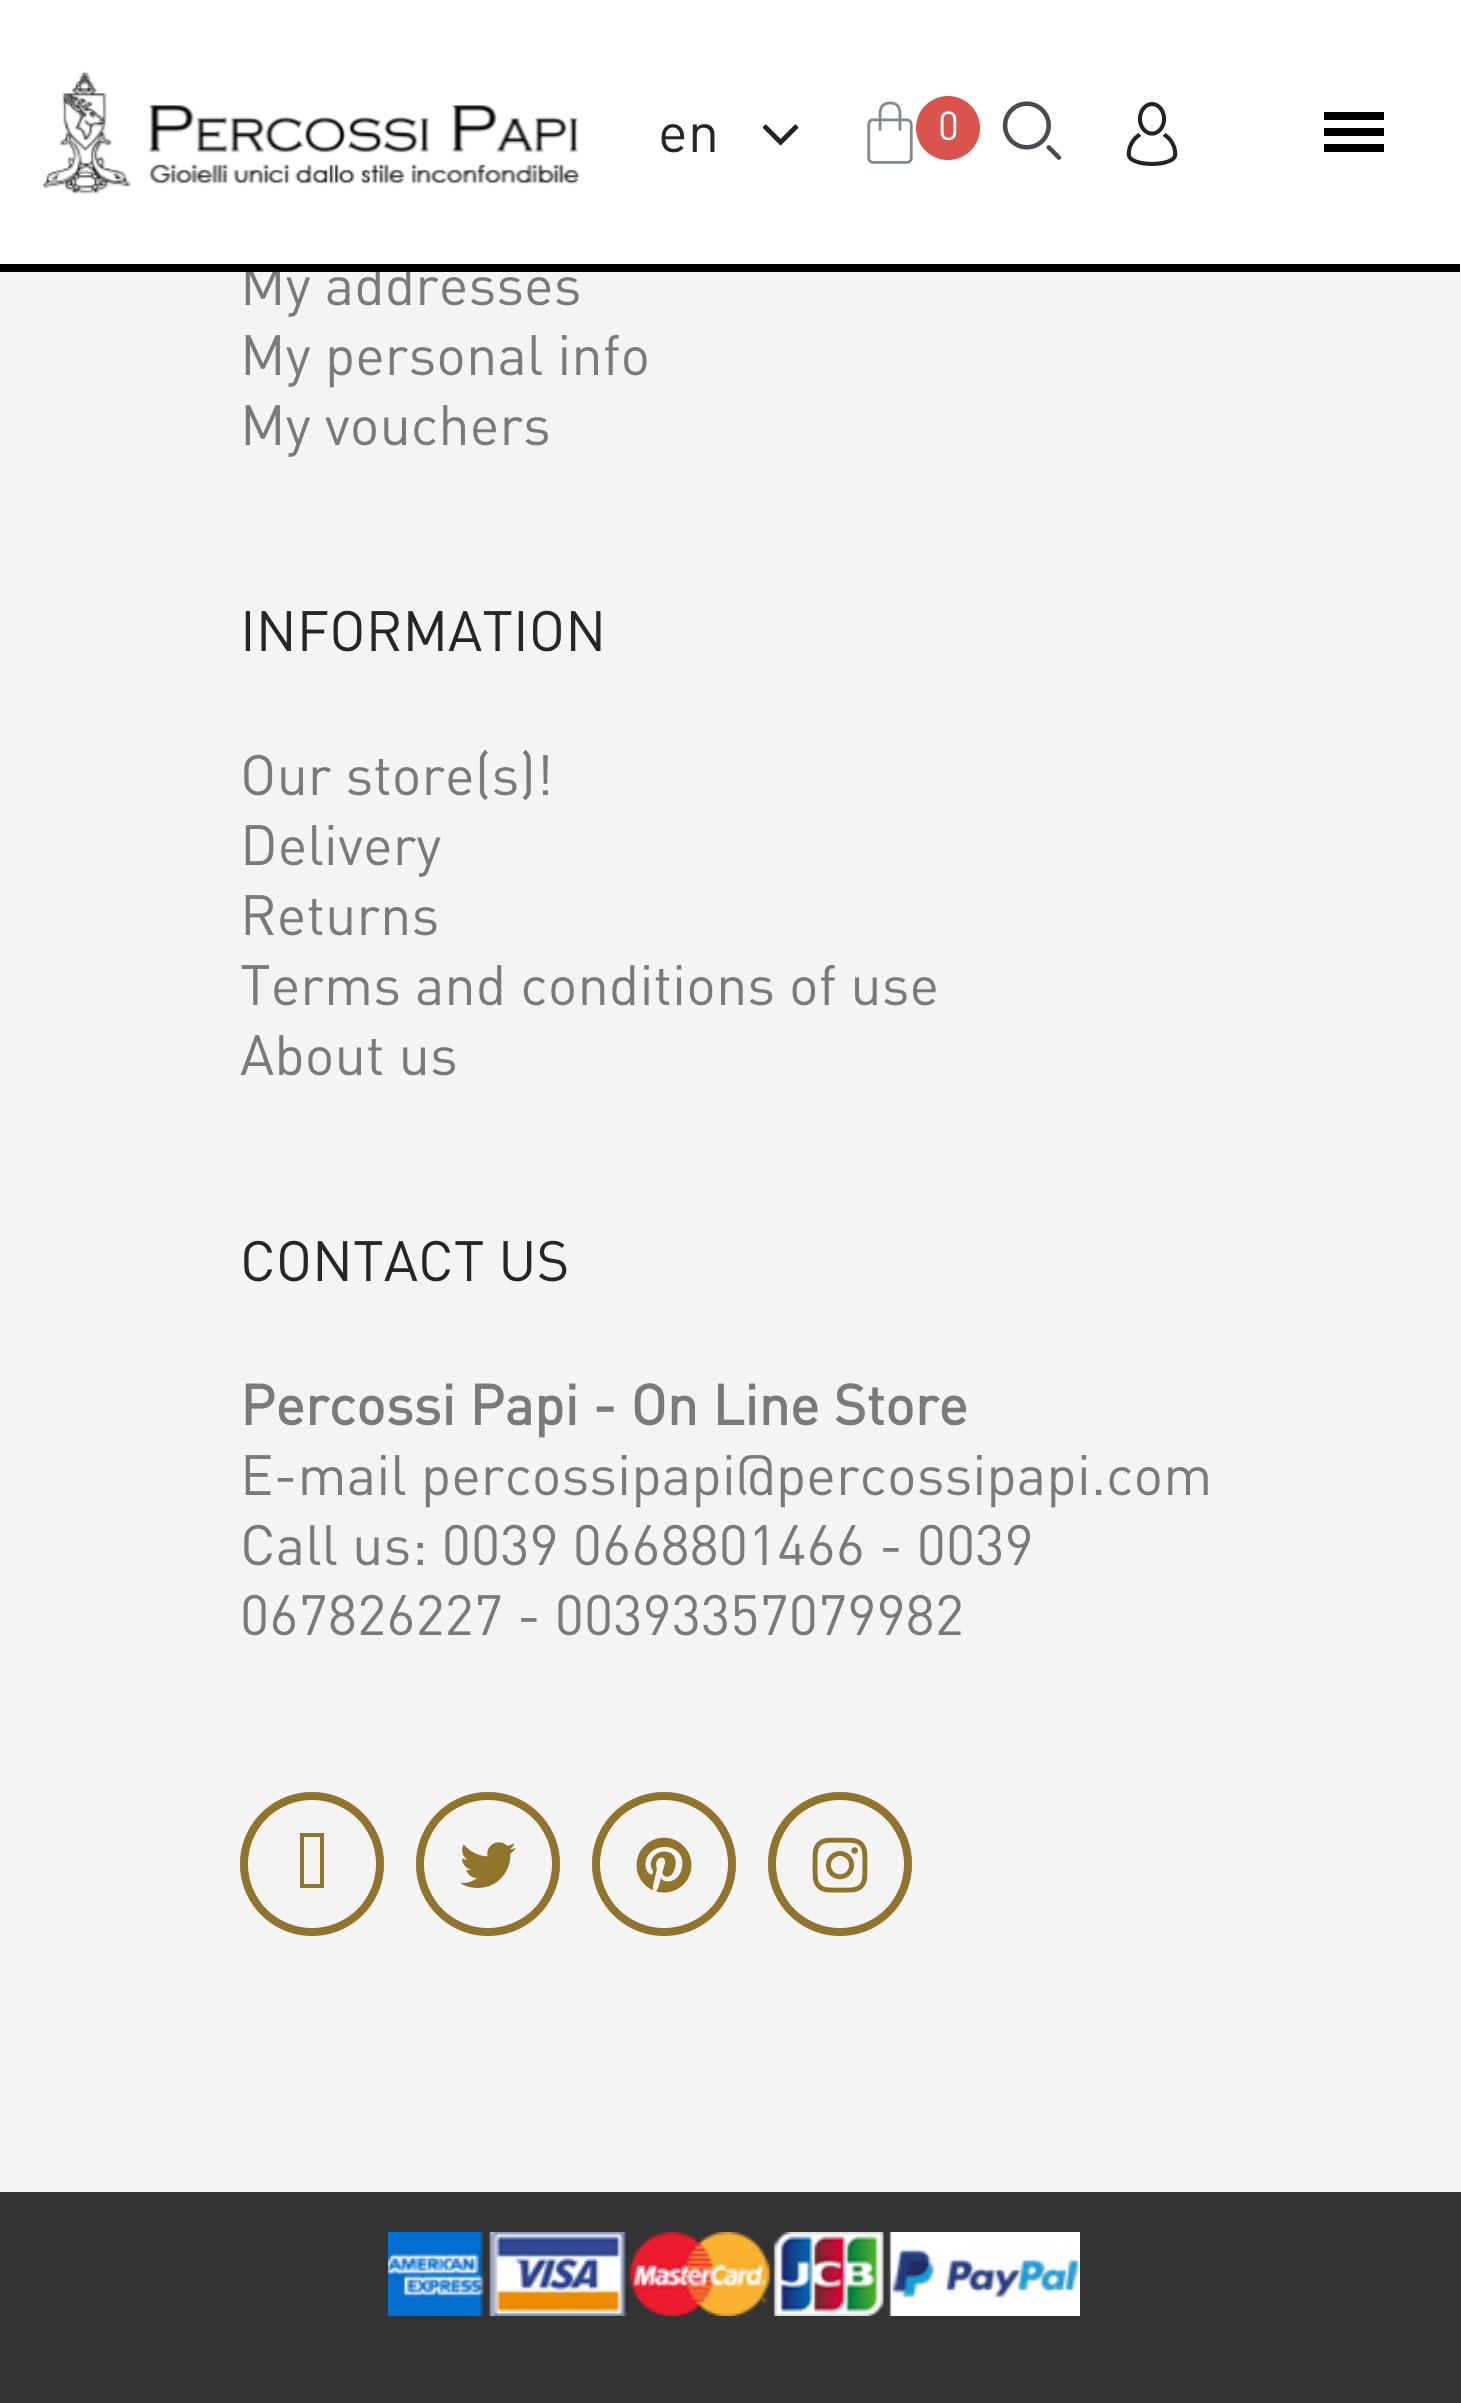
import math
import cairo

surface = cairo.ImageSurface(cairo.FORMAT_RGB24, 1461, 2403)
c = cairo.Context(surface)
options = cairo.FontOptions()
options.set_hint_metrics(cairo.HINT_METRICS_OFF)
options.set_hint_style(cairo.HINT_STYLE_NONE)
c.set_font_options(options)
c.set_miter_limit(4)
def C(code):
 c.set_source_rgb(*(v / 255 for v in bytes.fromhex(code[-6:])))
def F(family, size, italic, bold):
 c.select_font_face(family, cairo.FONT_SLANT_ITALIC if italic else cairo.FONT_SLANT_NORMAL, cairo.FONT_WEIGHT_BOLD if bold else cairo.FONT_WEIGHT_NORMAL)
 c.set_font_size(size)
def T(x, y, s):
 c.move_to(x, y)
 c.show_text(s)
def R(x, y, w, h):
 c.rectangle(x, y, w, h)
 c.fill()
def I(path, x, y, w, h):
 c.save()
 c.set_source_surface(cairo.ImageSurface.create_from_png(path), x, y)
 c.rectangle(x, y, w, h)
 c.fill()
 c.restore()
C('f4f4f4')
c.paint()
C('ffffff')
R(0,0,1461,264)
F('DIN',56,0,0)
C('7a7a7a')
T(240,305,'My addresses')
C('000000')
R(0,264,1460,8)
I('1.png',43,71,537,124)
C('262626')
T(658,152,'en')
I('2.png',762,124,37,22)
I('3.png',867,101,46,63)
C('d9534f')
c.arc(948,128,32,0,2 * math.pi)
c.fill()
F('DIN',40,0,0)
C('ffffff')
T(938,140,'0')
I('4.png',1002,101,60,59)
I('5.png',1126,102,52,64)
C('000000')
R(1324,128,60,8)
R(1324,112,60,8)
R(1324,144,60,8)
F('DIN',56,0,0)
C('7a7a7a')
T(240,375,'My personal info')
T(240,445,'My vouchers')
C('262626')
T(240,651,'INFORMATION')
C('7a7a7a')
T(240,795,'Our store(s)!')
T(240,865,'Delivery')
T(240,935,'Returns')
T(240,1005,'Terms and conditions of use')
T(240,1075,'About us')
C('262626')
T(240,1281,'CONTACT US')
F('DIN',56,0,1)
C('7a7a7a')
T(240,1425,'Percossi Papi - On Line Store')
F('DIN',56,0,0)
T(240,1495,'E-mail percossipapi@percossipapi.com')
T(240,1565,'Call us: 0039 0668801466 - 0039')
T(240,1635,'067826227 - 00393357079982')
c.new_path()
c.arc(312,1864,68,0,2 * math.pi)
C('90742b')
c.set_line_width(8)
c.stroke()
c.new_path()
c.move_to(304,1884)
c.line_to(320,1884)
c.line_to(320,1837)
c.line_to(304,1837)
c.close_path()
c.move_to(300,1888)
c.line_to(300,1833)
c.line_to(324,1833)
c.line_to(324,1888)
c.close_path()
c.fill()
c.arc(488,1864,68,0,2 * math.pi)
c.stroke()
I('6.png',460,1842,56,46)
c.arc(664,1864,68,0,2 * math.pi)
c.stroke()
I('7.png',636,1837,56,56)
c.arc(840,1864,68,0,2 * math.pi)
c.stroke()
I('8.png',812,1837,56,56)
C('333333')
R(0,2192,1461,211)
I('9.png',388,2232,692,84)
surface.write_to_png('o.png')
